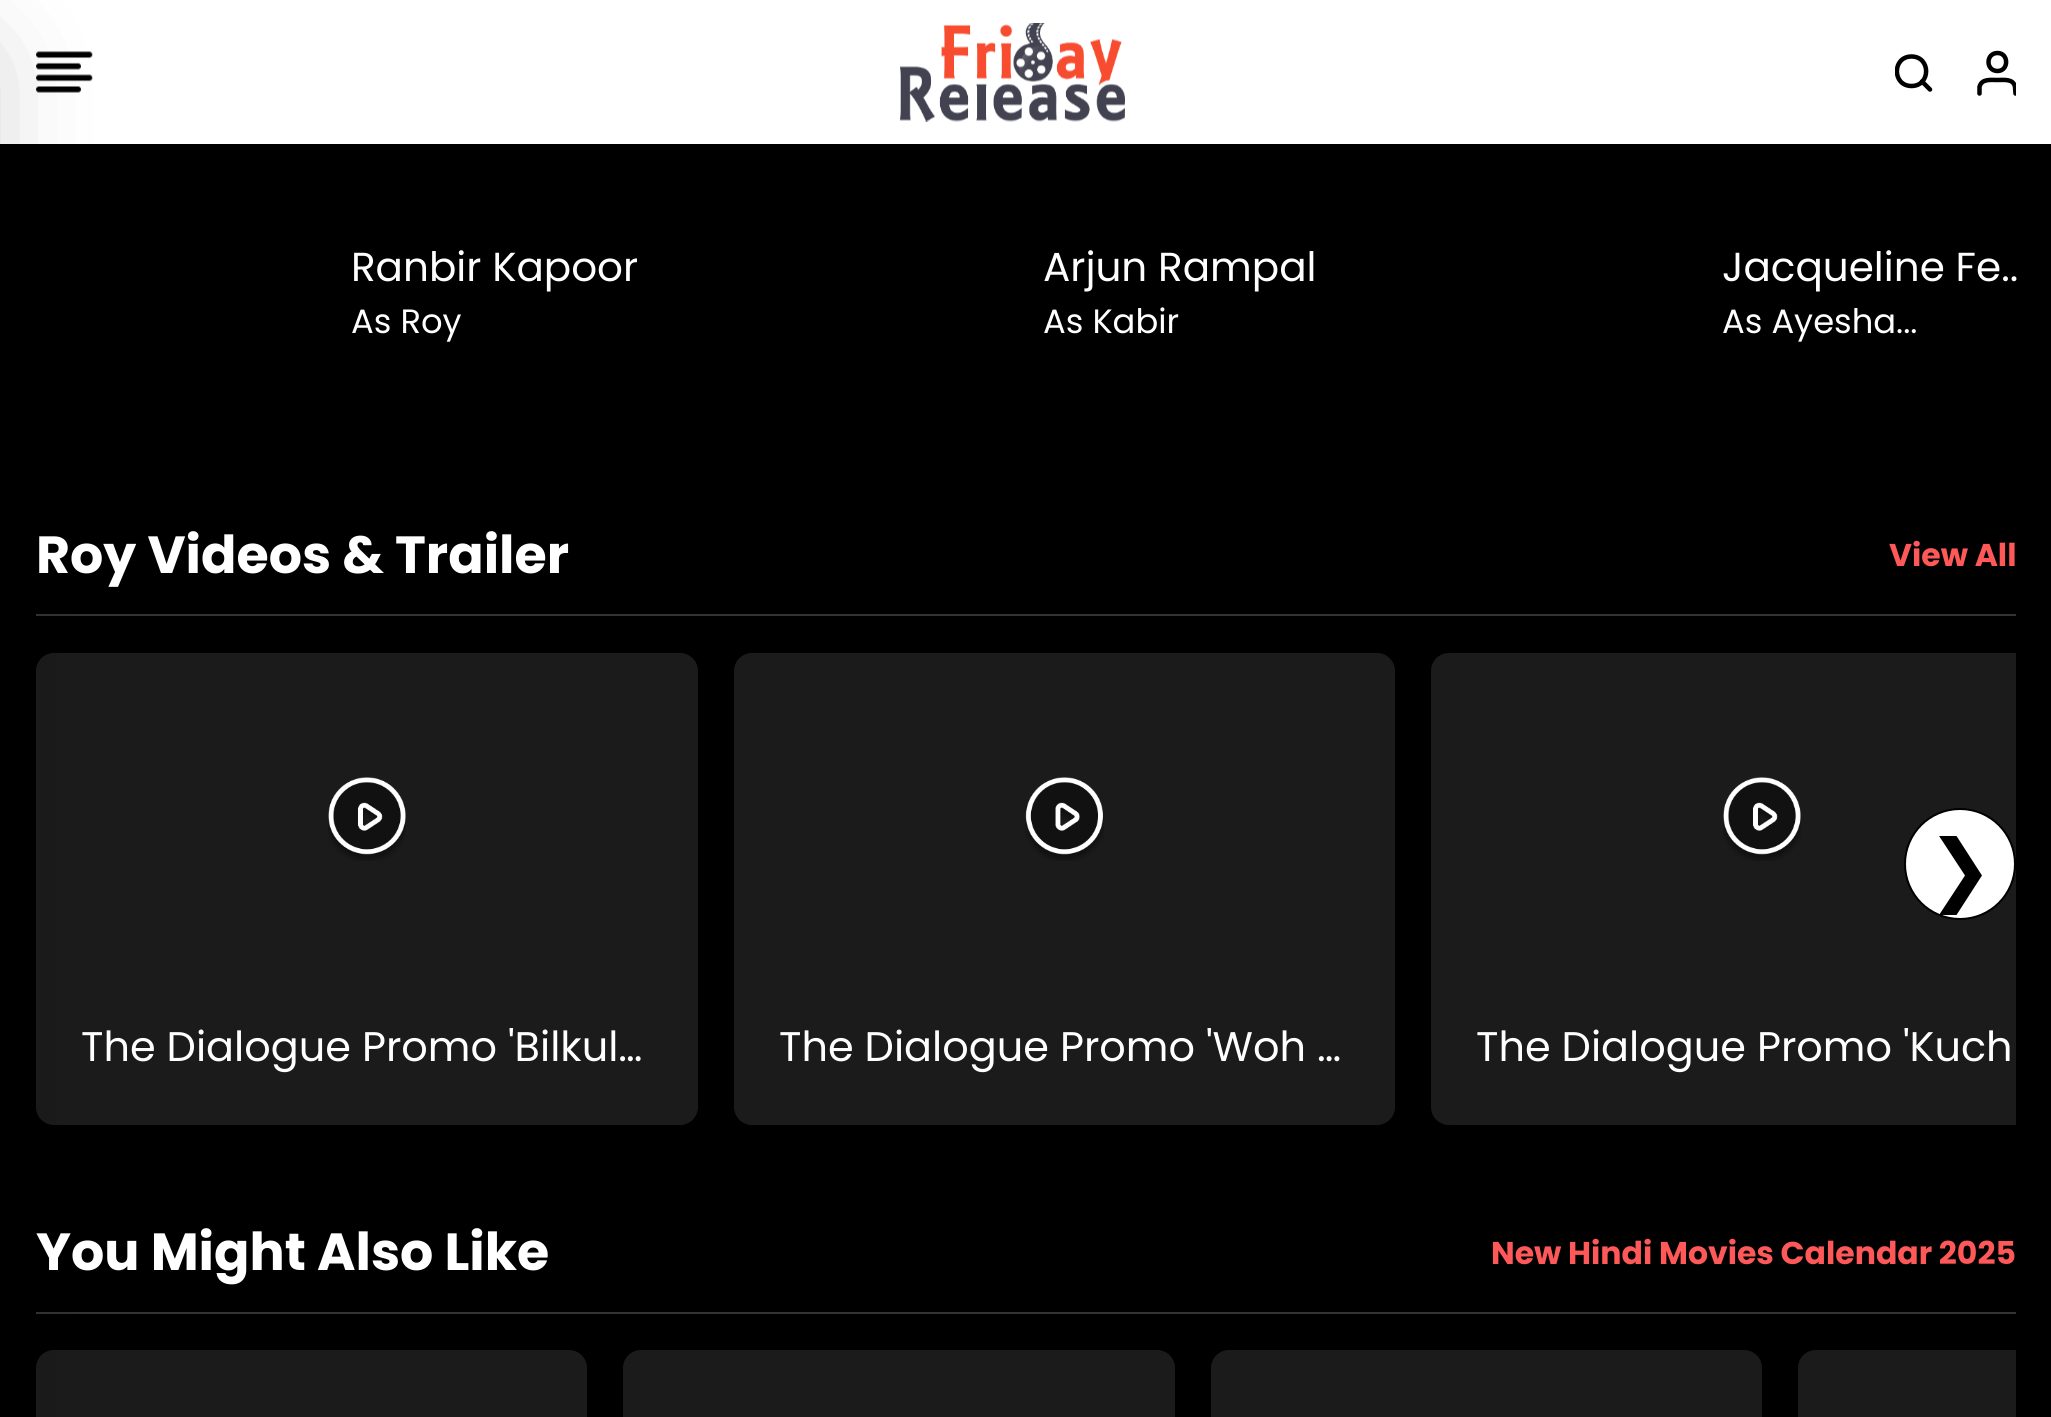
import math
import cairo

surface = cairo.ImageSurface(cairo.FORMAT_RGB24, 2051, 1417)
c = cairo.Context(surface)
options = cairo.FontOptions()
options.set_hint_metrics(cairo.HINT_METRICS_OFF)
options.set_hint_style(cairo.HINT_STYLE_NONE)
c.set_font_options(options)
c.set_miter_limit(4)
def C(code):
 c.set_source_rgb(*(v / 255 for v in bytes.fromhex(code[-6:])))
def F(family, size, italic, bold):
 c.select_font_face(family, cairo.FONT_SLANT_ITALIC if italic else cairo.FONT_SLANT_NORMAL, cairo.FONT_WEIGHT_BOLD if bold else cairo.FONT_WEIGHT_NORMAL)
 c.set_font_size(size)
def T(x, y, s):
 c.move_to(x, y)
 c.show_text(s)
def R(x, y, w, h):
 c.rectangle(x, y, w, h)
 c.fill()
def Q(x, y, w, h, r):
 c.new_sub_path()
 for i, (u, v) in enumerate([(x + w - r, y + h - r), (x + r, y + h - r), (x + r, y + r), (x + w - r, y + r)]):
  c.arc(u, v, r, i * math.pi / 2, (i + 1) * math.pi / 2)
 c.close_path()
def S(x, y, w, h, r, blur, alpha):
 c.push_group_with_content(cairo.CONTENT_ALPHA)
 c.set_operator(cairo.OPERATOR_SOURCE)
 for i in range(15, -16, -2):
  e = blur * i / 6
  if min(w, h) + 2 * e > 0:
   c.set_source_rgba(0, 0, 0, alpha * math.erfc((i - 1) / 8.5) / 2)
   Q(x - e, y - e, w + 2 * e, h + 2 * e, max(0, min(r + e + blur * .6, min(w, h) / 2 + e)))
   c.fill()
 c.mask(c.pop_group())
def I(path, x, y, w, h):
 c.save()
 c.set_source_surface(cairo.ImageSurface.create_from_png(path), x, y)
 c.rectangle(x, y, w, h)
 c.fill()
 c.restore()
C('000000')
c.paint()
C('ffffff')
R(0,0,2051,144)
I('1.png',36,51,57,42)
I('2.png',900,23,225,99)
c.save()
c.rectangle(1895,54,38,38)
c.clip()
c.new_path()
c.move_to(1911.5,86)
c.curve_to(1931,86,1931,56.5,1911.5,56.5)
c.curve_to(1892,56.5,1892,86,1911.5,86)
c.close_path()
C('000000')
c.set_line_width(4.5)
c.set_line_cap(cairo.LINE_CAP_ROUND)
c.set_line_join(cairo.LINE_JOIN_ROUND)
c.stroke()
c.restore()
c.new_path()
c.move_to(1930,89.5)
c.line_to(1922,81.5)
C('000000')
c.set_line_width(4.5)
c.set_line_cap(cairo.LINE_CAP_ROUND)
c.set_line_join(cairo.LINE_JOIN_ROUND)
c.stroke()
c.save()
c.rectangle(1969,45,47,56)
c.clip()
c.new_path()
c.move_to(2015.5,93.5)
c.line_to(2015,87)
c.curve_to(2013.5,78.5,2004,80,1997.5,80)
c.curve_to(1990.5,80,1981.5,78.5,1979.5,87)
c.line_to(1979.5,93.5)
c.stroke()
c.restore()
c.new_path()
c.move_to(1997.5,71)
c.curve_to(2009,71,2009,53,1997.5,53)
c.curve_to(1985.5,53,1985.5,71,1997.5,71)
c.close_path()
c.stroke()
C('333333')
R(36,614,1980,2)
C('1b1b1b')
Q(36,653,662,472,18)
c.fill()
C('333333')
R(36,1312,1980,2)
C('1b1b1b')
Q(36,1350,551,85,18)
c.fill()
C('000000')
S(-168,61,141,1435,0,56,.25)
F('Poppins',40.5,0,0)
C('ffffff')
T(351,281,'Ranbir Kapoor')
F('Poppins',33.75,0,0)
T(351,333,'As Roy')
F('Poppins',40.5,0,0)
T(1043,281,'Arjun Rampal')
F('Poppins',33.75,0,0)
T(1043,333,'As Kabir')
F('Poppins',40.5,0,0)
T(1722,281,'Jacqueline Fe..')
F('Poppins',33.75,0,0)
T(1722,333,'As Ayesha...')
F('Poppins',52.25,0,1)
T(36,573,'Roy Videos & Trailer')
F('Poppins',31.5,0,1)
C('ff5858')
T(1889,566,'View All')
C('1b1b1b')
c.new_path()
c.move_to(1449,653)
c.line_to(2016,653)
c.line_to(2016,1125)
c.line_to(1449,1125)
c.curve_to(1439,1125,1431,1117,1431,1107)
c.line_to(1431,671)
c.curve_to(1431,661,1439,653,1449,653)
c.close_path()
c.fill()
C('ffffff')
c.arc(1960,864,55,0,2 * math.pi)
c.fill_preserve()
C('000000')
c.set_line_width(2)
c.set_line_cap(cairo.LINE_CAP_BUTT)
c.set_line_join(cairo.LINE_JOIN_MITER)
c.stroke()
F('DejaVu Sans',79,0,0)
T(1927,896,'❯')
I('3.png',328,777,78,84)
F('Poppins',41.4,0,0)
C('ffffff')
T(81,1061,'The Dialogue Promo \'Bilkul…')
C('1b1b1b')
Q(734,653,661,472,18)
c.fill()
I('4.png',1025,777,79,84)
C('ffffff')
T(779,1061,'The Dialogue Promo \'Woh …')
I('5.png',1723,777,78,84)
T(1476,1061,'The Dialogue Promo \'Kuch')
F('Poppins',52.25,0,1)
T(36,1270,'You Might Also Like')
F('Poppins',31.5,0,1)
C('ff5858')
T(1491,1264,'New Hindi Movies Calendar 2025')
C('1b1b1b')
Q(623,1350,552,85,18)
c.fill()
Q(1211,1350,551,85,18)
c.fill()
c.new_path()
c.move_to(1816,1350)
c.line_to(2016,1350)
c.line_to(2016,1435)
c.line_to(1816,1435)
c.curve_to(1806,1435,1798,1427,1798,1417)
c.line_to(1798,1368)
c.curve_to(1798,1358,1806,1350,1816,1350)
c.close_path()
c.fill()
surface.write_to_png('o.png')
